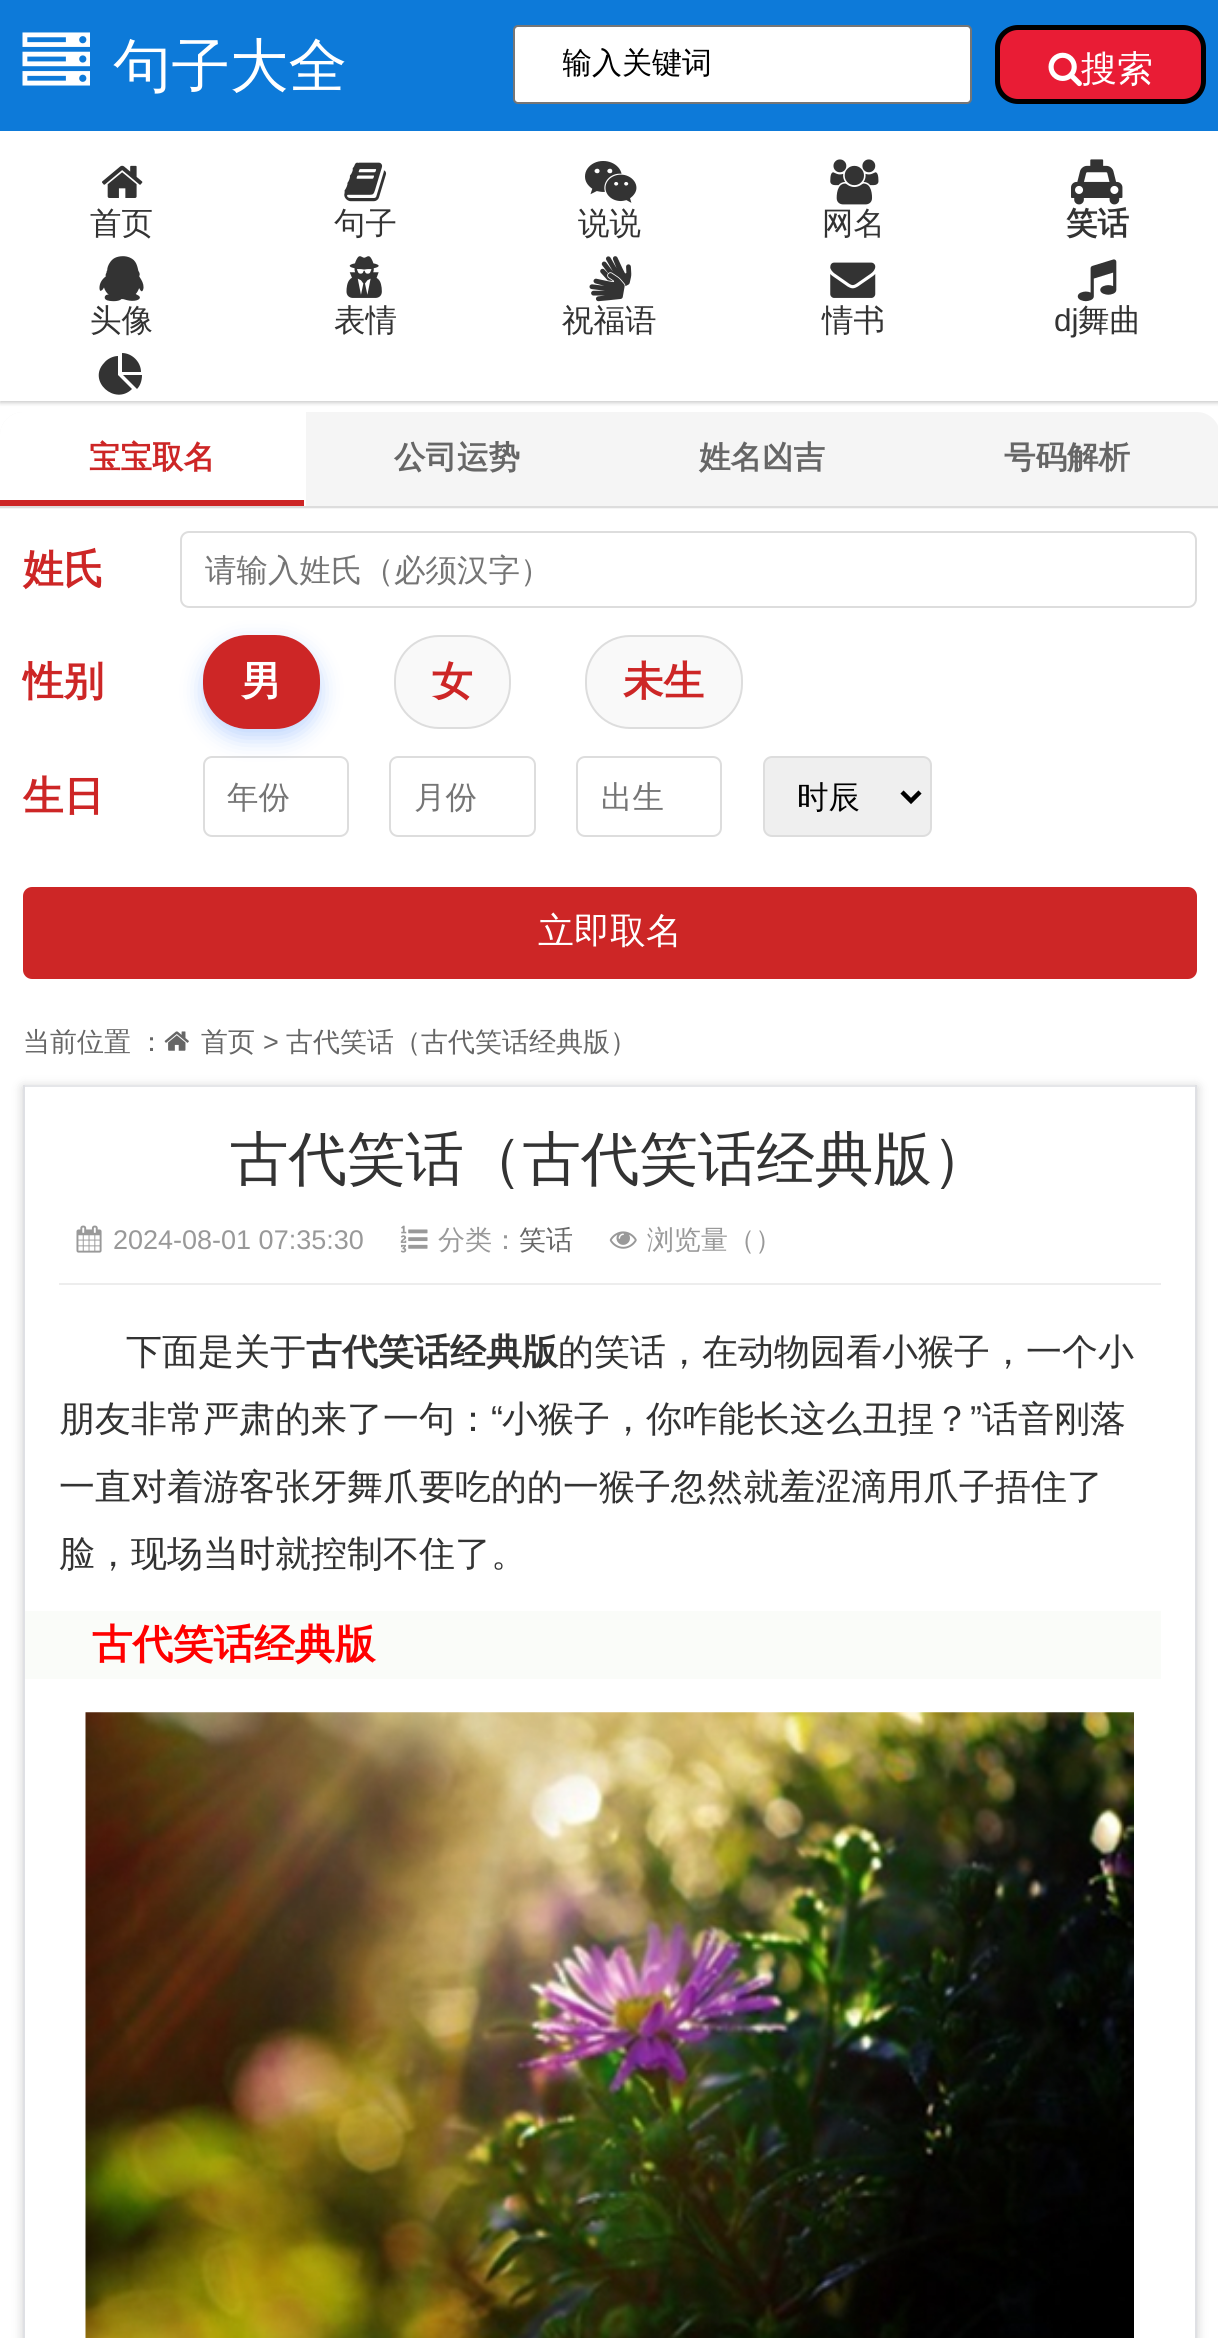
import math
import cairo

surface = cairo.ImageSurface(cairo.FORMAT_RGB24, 1218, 2338)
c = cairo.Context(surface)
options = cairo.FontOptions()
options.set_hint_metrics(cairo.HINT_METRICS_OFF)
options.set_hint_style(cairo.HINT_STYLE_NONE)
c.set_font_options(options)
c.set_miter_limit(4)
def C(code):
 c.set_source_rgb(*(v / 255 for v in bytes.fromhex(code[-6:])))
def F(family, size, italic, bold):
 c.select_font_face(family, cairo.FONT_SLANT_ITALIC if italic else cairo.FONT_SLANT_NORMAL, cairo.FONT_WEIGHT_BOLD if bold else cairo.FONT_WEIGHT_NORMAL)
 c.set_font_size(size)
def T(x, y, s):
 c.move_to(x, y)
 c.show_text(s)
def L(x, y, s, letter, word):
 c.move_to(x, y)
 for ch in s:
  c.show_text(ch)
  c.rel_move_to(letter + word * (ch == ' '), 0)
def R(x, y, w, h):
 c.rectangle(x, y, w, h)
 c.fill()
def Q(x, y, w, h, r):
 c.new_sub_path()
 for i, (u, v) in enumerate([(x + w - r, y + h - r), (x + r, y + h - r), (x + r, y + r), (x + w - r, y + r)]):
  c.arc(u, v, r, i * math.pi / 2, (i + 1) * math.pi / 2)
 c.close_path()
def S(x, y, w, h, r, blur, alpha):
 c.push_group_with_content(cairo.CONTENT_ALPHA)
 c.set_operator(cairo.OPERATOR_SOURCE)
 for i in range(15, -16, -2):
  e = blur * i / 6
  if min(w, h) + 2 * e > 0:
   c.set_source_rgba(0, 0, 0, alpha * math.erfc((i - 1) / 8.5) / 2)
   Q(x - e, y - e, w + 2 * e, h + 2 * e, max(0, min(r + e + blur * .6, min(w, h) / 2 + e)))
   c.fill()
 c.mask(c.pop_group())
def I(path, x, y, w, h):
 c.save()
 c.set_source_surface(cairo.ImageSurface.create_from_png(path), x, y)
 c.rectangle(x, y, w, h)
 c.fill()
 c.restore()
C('ffffff')
c.paint()
C('000000')
S(0,2,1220,401,0,2,.2)
C('ffffff')
R(0,131,1218,270)
C('0d7ad9')
R(0,0,1218,131)
I('1.png',22,32,68,54)
F('WenQuanYi Zen Hei Medium',58.5,0,0)
C('ffffff')
T(113,86,'句子大全')
Q(514,26,457,77,4)
c.fill_preserve()
C('767676')
c.stroke()
c.save()
c.rectangle(563,45,405,41)
c.clip()
F('WenQuanYi Zen Hei Medium',30,0,0)
C('000000')
T(562,73,'输入关键词')
c.restore()
C('e91c35')
Q(997.5,27.5,206,74,20.5)
c.fill_preserve()
C('000000')
c.set_line_width(5)
c.stroke()
I('2.png',1048,52,34,35)
F('WenQuanYi Zen Hei Medium',36,0,0)
C('ffffff')
T(1081,81,'搜索')
I('3.png',102,165,41,33)
F('WenQuanYi Zen Hei Medium',31.5,0,0)
C('333333')
T(90,234,'首页')
I('4.png',344,162,43,40)
T(334,234,'句子')
I('5.png',585,161,52,42)
T(578,234,'说说')
I('6.png',830,159,49,46)
T(822,234,'网名')
I('7.png',1071,159,52,46)
F('WenQuanYi Zen Hei',31.5,0,1)
T(1066,234,'笑话')
I('8.png',99,256,45,46)
F('WenQuanYi Zen Hei Medium',31.5,0,0)
T(90,331,'头像')
I('9.png',346,256,36,42)
T(334,331,'表情')
I('10.png',589,256,43,46)
T(562,331,'祝福语')
I('11.png',830,262,46,36)
T(822,331,'情书')
I('12.png',1077,259,40,43)
F('Liberation Sans',31.5,0,0)
T(1054,331,'dj')
F('WenQuanYi Zen Hei Medium',31.5,0,0)
T(1078,331,'舞曲')
c.new_path()
c.move_to(118,375)
c.line_to(132,389)
c.curve_to(115,406,87,381,104,363)
c.curve_to(107,359,113,356,118,356)
c.close_path()
c.move_to(123,375)
c.line_to(142,375)
c.curve_to(142,381,140,386,137,389)
c.close_path()
c.move_to(141,372)
c.line_to(122,372)
c.line_to(122,353)
c.curve_to(132,353,141,362,141,372)
c.close_path()
c.fill()
C('f5f5f5')
c.new_path()
c.move_to(23,412)
c.line_to(1197,412)
c.curve_to(1209.5,412,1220,422.5,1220,435)
c.line_to(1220,509)
c.line_to(0,509)
c.line_to(0,435)
c.curve_to(0,422.5,10.5,412,23,412)
c.close_path()
c.fill()
C('dddddd')
R(0,506,1218,2)
C('ffffff')
c.new_path()
c.move_to(23,412)
c.line_to(306,412)
c.line_to(306,506)
c.line_to(0,506)
c.line_to(0,435)
c.curve_to(0,422.5,10.5,412,23,412)
c.close_path()
c.fill()
F('WenQuanYi Zen Hei',31.5,0,1)
C('cd2626')
T(89,468,'宝宝取名')
R(0,500,304,6)
C('666666')
T(394,468,'公司运势')
T(699,468,'姓名凶吉')
T(1004,468,'号码解析')
F('WenQuanYi Zen Hei',40.5,0,1)
C('cd2626')
T(23,583,'姓氏')
Q(181,532,1015,75,8)
C('dddddd')
c.set_line_width(2)
c.stroke()
F('WenQuanYi Zen Hei Medium',31.5,0,0)
C('757575')
T(205,581,'请输入姓氏（必须汉字）')
F('WenQuanYi Zen Hei',40.5,0,1)
C('cd2626')
T(23,695,'性别')
Q(204,757,144,79,8)
C('dddddd')
c.stroke()
C('2575fc')
S(203,644,117,94,45,11,.3)
C('cd2626')
Q(204,636,115,92,44)
c.fill_preserve()
c.stroke()
C('ffffff')
T(241,695,'男')
C('f9f9f9')
Q(395,636,115,92,44)
c.fill_preserve()
C('dddddd')
c.stroke()
C('cd2626')
T(432,695,'女')
C('f9f9f9')
Q(586,636,156,92,44)
c.fill_preserve()
C('dddddd')
c.stroke()
C('cd2626')
T(623,695,'未生')
T(23,810,'生日')
F('WenQuanYi Zen Hei Medium',31.5,0,0)
C('757575')
T(227,808,'年份')
Q(390,757,145,79,8)
C('dddddd')
c.stroke()
C('757575')
T(414,808,'月份')
Q(577,757,144,79,8)
C('dddddd')
c.stroke()
C('757575')
T(601,808,'出生')
C('efefef')
Q(764,757,167,79,8)
c.fill_preserve()
C('dddddd')
c.stroke()
c.new_path()
c.move_to(902,792)
c.line_to(911,801)
c.line_to(920,792)
C('000000')
c.set_line_width(4.5)
c.stroke()
T(797,808,'时辰')
C('cd2626')
Q(23,887,1174,92,9)
c.fill()
F('WenQuanYi Zen Hei Medium',36,0,0)
C('ffffff')
T(538,943,'立即取名')
F('WenQuanYi Zen Hei Medium',27,0,0)
C('666666')
L(23,1051,'当前位置 ：',0,-1)
I('13.png',164,1031,25,20)
T(201,1051,'首页')
F('Liberation Sans',27,0,0)
T(263,1051,'>')
F('WenQuanYi Zen Hei Medium',27,0,0)
T(286,1051,'古代笑话（古代笑话经典版）')
c.save()
c.set_fill_rule(cairo.FILL_RULE_EVEN_ODD)
c.new_path()
c.move_to(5,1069)
c.line_to(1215,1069)
c.line_to(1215,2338)
c.line_to(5,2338)
c.close_path()
c.move_to(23,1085)
c.line_to(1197,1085)
c.line_to(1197,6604)
c.line_to(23,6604)
c.close_path()
c.clip()
C('000000')
S(23,1087,1174,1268,0,5.5,.2)
c.restore()
C('e5e6e9')
R(23,1085,1174,2)
C('dfe0e4')
R(1195,1085,2,1253)
R(23,1085,2,1253)
F('WenQuanYi Zen Hei Medium',58.5,0,0)
C('333333')
T(230,1179,'古代笑话（古代笑话经典版）')
C('ededed')
R(59,1283,1102,2)
I('14.png',76,1225,26,28)
F('Liberation Sans',27,0,0)
C('999999')
T(113,1249,'2024-08-01 07:35:30')
I('15.png',400,1225,28,28)
F('WenQuanYi Zen Hei Medium',27,0,0)
T(438,1249,'分类：')
C('666666')
T(519,1249,'笑话')
I('16.png',609,1231,28,18)
C('999999')
T(647,1249,'浏览量（）')
F('WenQuanYi Zen Hei Medium',36,0,0)
C('333333')
T(126,1364,'下面是关于')
F('WenQuanYi Zen Hei',36,0,1)
T(306,1364,'古代笑话经典版')
F('WenQuanYi Zen Hei Medium',36,0,0)
T(558,1364,'的笑话，在动物园看小猴子，一个小')
T(59,1431,'朋友非常严肃的来了一句：')
F('Liberation Sans',36,0,0)
T(491,1431,'“')
F('WenQuanYi Zen Hei Medium',36,0,0)
T(502,1431,'小猴子，你咋能长这么丑捏？')
F('Liberation Sans',36,0,0)
T(970,1431,'”')
F('WenQuanYi Zen Hei Medium',36,0,0)
T(982,1431,'话音刚落')
T(59,1499,'一直对着游客张牙舞爪要吃的的一猴子忽然就羞涩滴用爪子捂住了')
T(59,1566,'脸，现场当时就控制不住了。')
C('fafcf9')
R(25,1611,1136,68)
F('WenQuanYi Zen Hei',40.5,0,1)
C('ff0000')
T(92,1658,'古代笑话经典版')
I('17.png',85,1712,1049,626)
surface.write_to_png('o.png')
